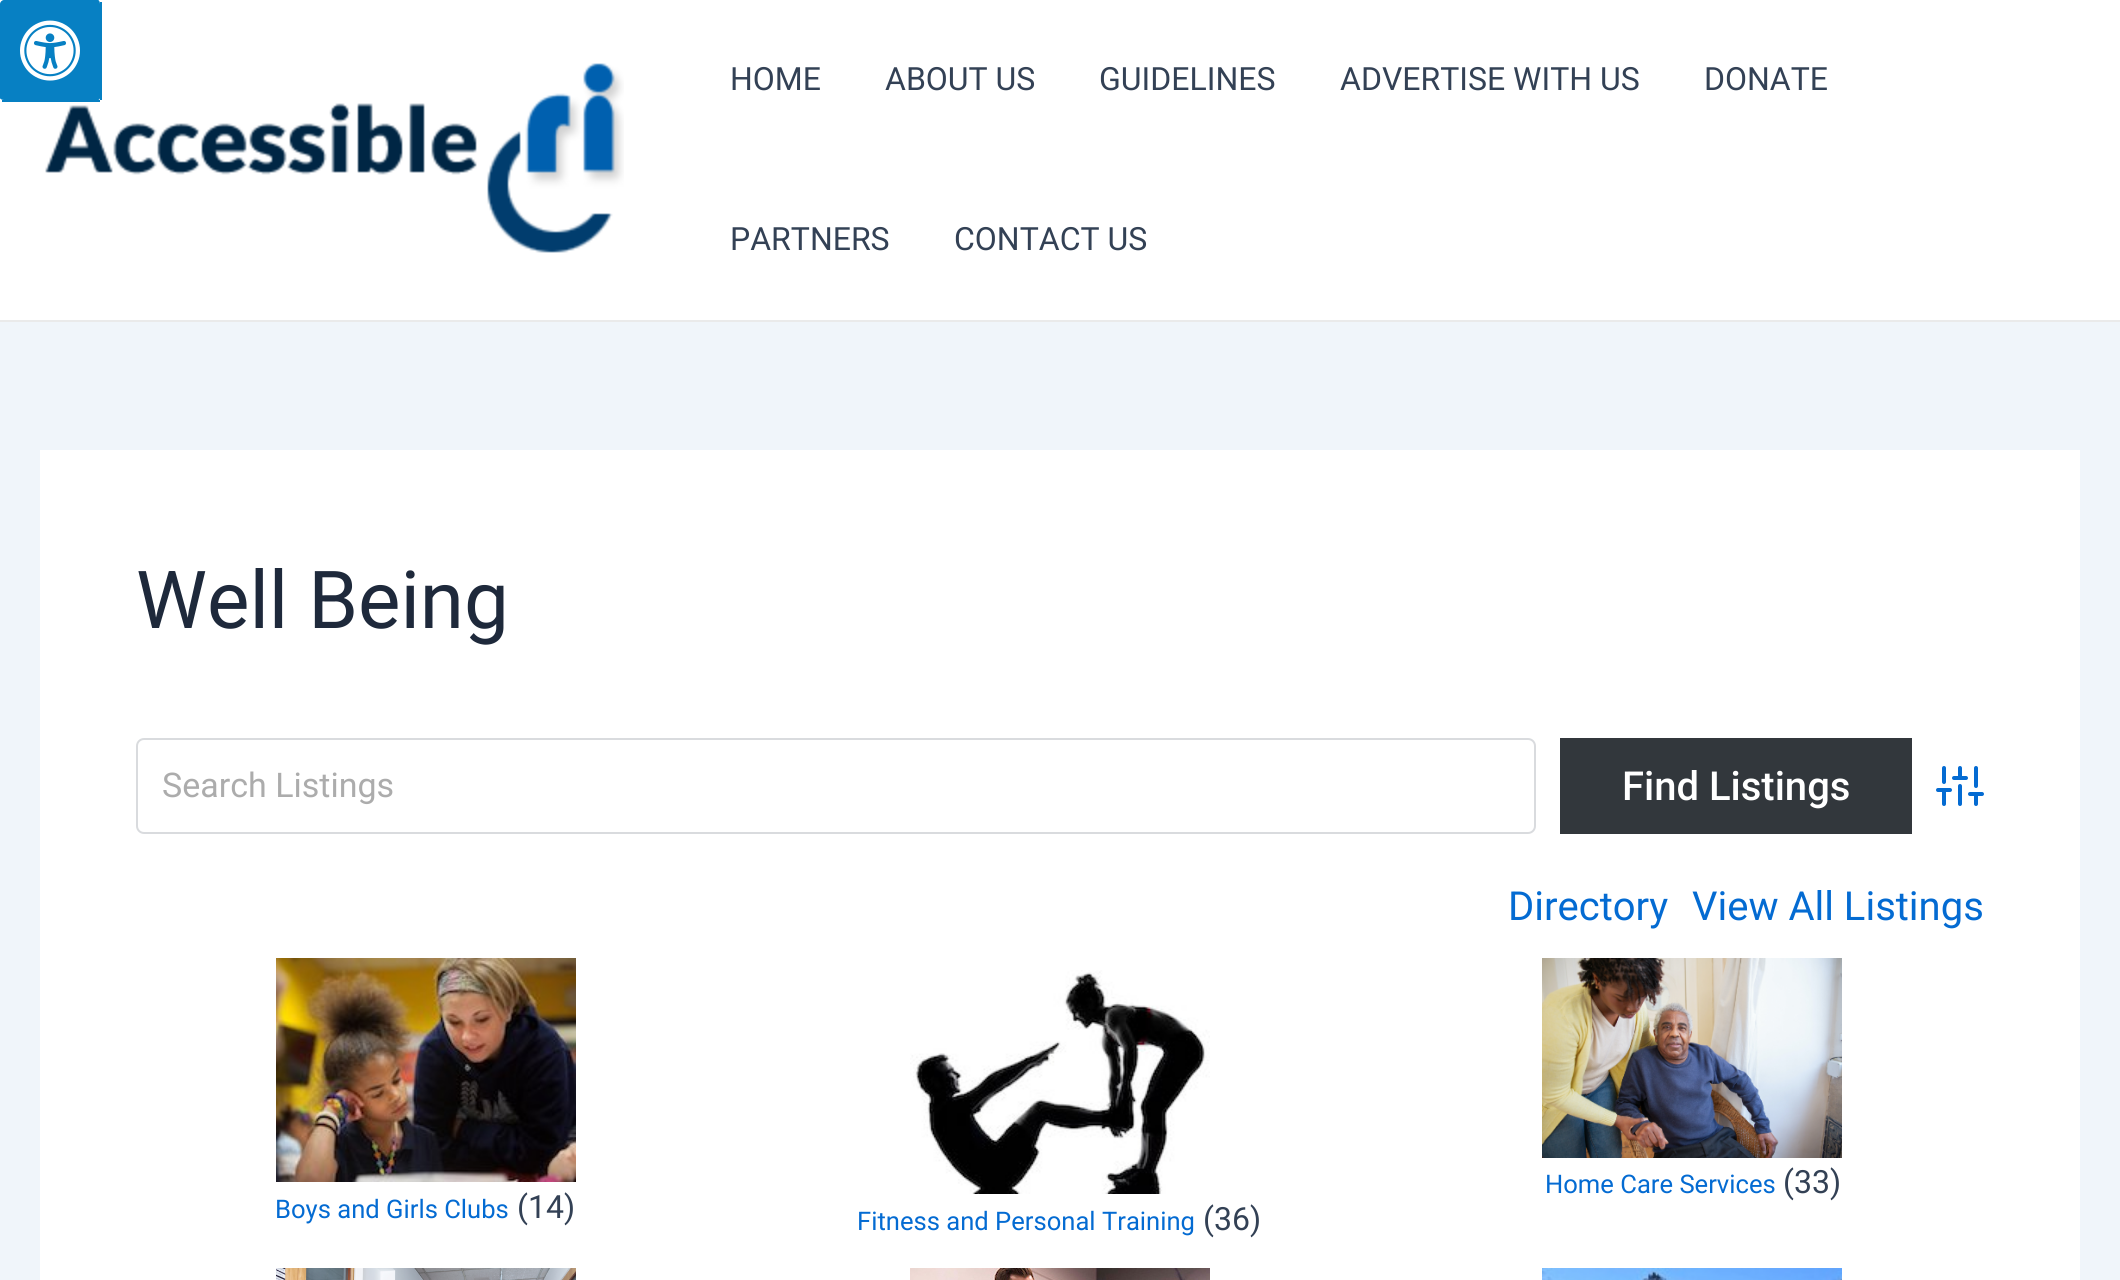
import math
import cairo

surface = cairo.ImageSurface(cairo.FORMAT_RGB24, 2120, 1280)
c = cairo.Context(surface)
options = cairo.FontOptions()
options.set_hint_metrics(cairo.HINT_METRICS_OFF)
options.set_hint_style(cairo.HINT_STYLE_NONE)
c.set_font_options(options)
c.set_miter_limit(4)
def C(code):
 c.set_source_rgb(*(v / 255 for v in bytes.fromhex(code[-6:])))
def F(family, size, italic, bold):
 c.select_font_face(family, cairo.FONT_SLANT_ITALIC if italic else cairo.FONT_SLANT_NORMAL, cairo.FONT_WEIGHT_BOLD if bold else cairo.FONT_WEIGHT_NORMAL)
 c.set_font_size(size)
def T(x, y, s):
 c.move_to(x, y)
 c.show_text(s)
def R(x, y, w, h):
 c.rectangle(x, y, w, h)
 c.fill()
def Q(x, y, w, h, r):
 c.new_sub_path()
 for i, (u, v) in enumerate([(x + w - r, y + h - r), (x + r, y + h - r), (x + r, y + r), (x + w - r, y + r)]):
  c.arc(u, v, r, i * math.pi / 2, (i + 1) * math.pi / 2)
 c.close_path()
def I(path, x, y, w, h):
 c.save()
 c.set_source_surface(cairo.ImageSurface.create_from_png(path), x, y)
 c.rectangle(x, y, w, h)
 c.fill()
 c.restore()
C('f0f5fa')
c.paint()
C('ffffff')
R(0,0,2120,320)
I('2.png',45,63,579,190)
C('0780c3')
c.new_path()
c.move_to(4,0)
c.line_to(98,0)
c.curve_to(99,0,100,2,100,4)
c.line_to(100,98)
c.curve_to(100,99,99,100,98,100)
c.line_to(4,100)
c.curve_to(2,100,0,99,0,98)
c.line_to(0,4)
c.curve_to(0,2,2,0,4,0)
c.close_path()
c.fill()
R(100,2,2,98)
R(2,100,98,2)
I('1.png',20,20,60,61)
C('eaeaea')
R(0,320,2120,2)
F('Roboto',32,0,0)
C('334155')
T(730,90,'HOME')
T(885,90,'ABOUT US')
T(1099,90,'GUIDELINES')
T(1340,90,'ADVERTISE WITH US')
T(1704,90,'DONATE')
T(730,250,'PARTNERS')
T(954,250,'CONTACT US')
C('ffffff')
R(40,450,2040,830)
F('Roboto',80,0,0)
C('1e293b')
T(136,628,'Well Being')
Q(137,739,1398,94,7)
C('d9dbde')
c.stroke()
F('Roboto',34,0,0)
C('acacac')
T(162,797,'Search Listings')
C('32373c')
R(1560,738,352,96)
F('Roboto Medium',40,0,0)
C('ffffff')
T(1622,800,'Find Listings')
c.new_path()
c.move_to(1944,804)
c.line_to(1944,790)
c.move_to(1944,782)
c.line_to(1944,768)
c.move_to(1960,804)
c.line_to(1960,786)
c.move_to(1960,778)
c.line_to(1960,768)
c.move_to(1976,804)
c.line_to(1976,794)
c.move_to(1976,786)
c.line_to(1976,768)
c.move_to(1938,790)
c.line_to(1950,790)
c.move_to(1954,778)
c.line_to(1966,778)
c.move_to(1970,794)
c.line_to(1982,794)
C('046bd2')
c.set_line_width(4)
c.set_line_cap(cairo.LINE_CAP_ROUND)
c.set_line_join(cairo.LINE_JOIN_ROUND)
c.stroke()
F('Roboto',40,0,0)
T(1508,920,'Directory')
T(1692,920,'View All Listings')
I('3.png',1542,958,300,200)
F('Roboto',25.6,0,0)
T(1545,1193,'Home Care Services')
F('Roboto',32,0,0)
C('334155')
T(1783,1193,'(33)')
I('4.png',276,958,300,224)
F('Roboto',25.6,0,0)
C('046bd2')
T(275,1218,'Boys and Girls Clubs')
F('Roboto',32,0,0)
C('334155')
T(517,1218,'(14)')
I('5.png',910,970,300,224)
F('Roboto',25.6,0,0)
C('046bd2')
T(857,1230,'Fitness and Personal Training')
F('Roboto',32,0,0)
C('334155')
T(1203,1230,'(36)')
I('6.png',276,1268,300,12)
I('7.png',910,1268,300,12)
I('8.png',1542,1268,300,12)
surface.write_to_png('o.png')
